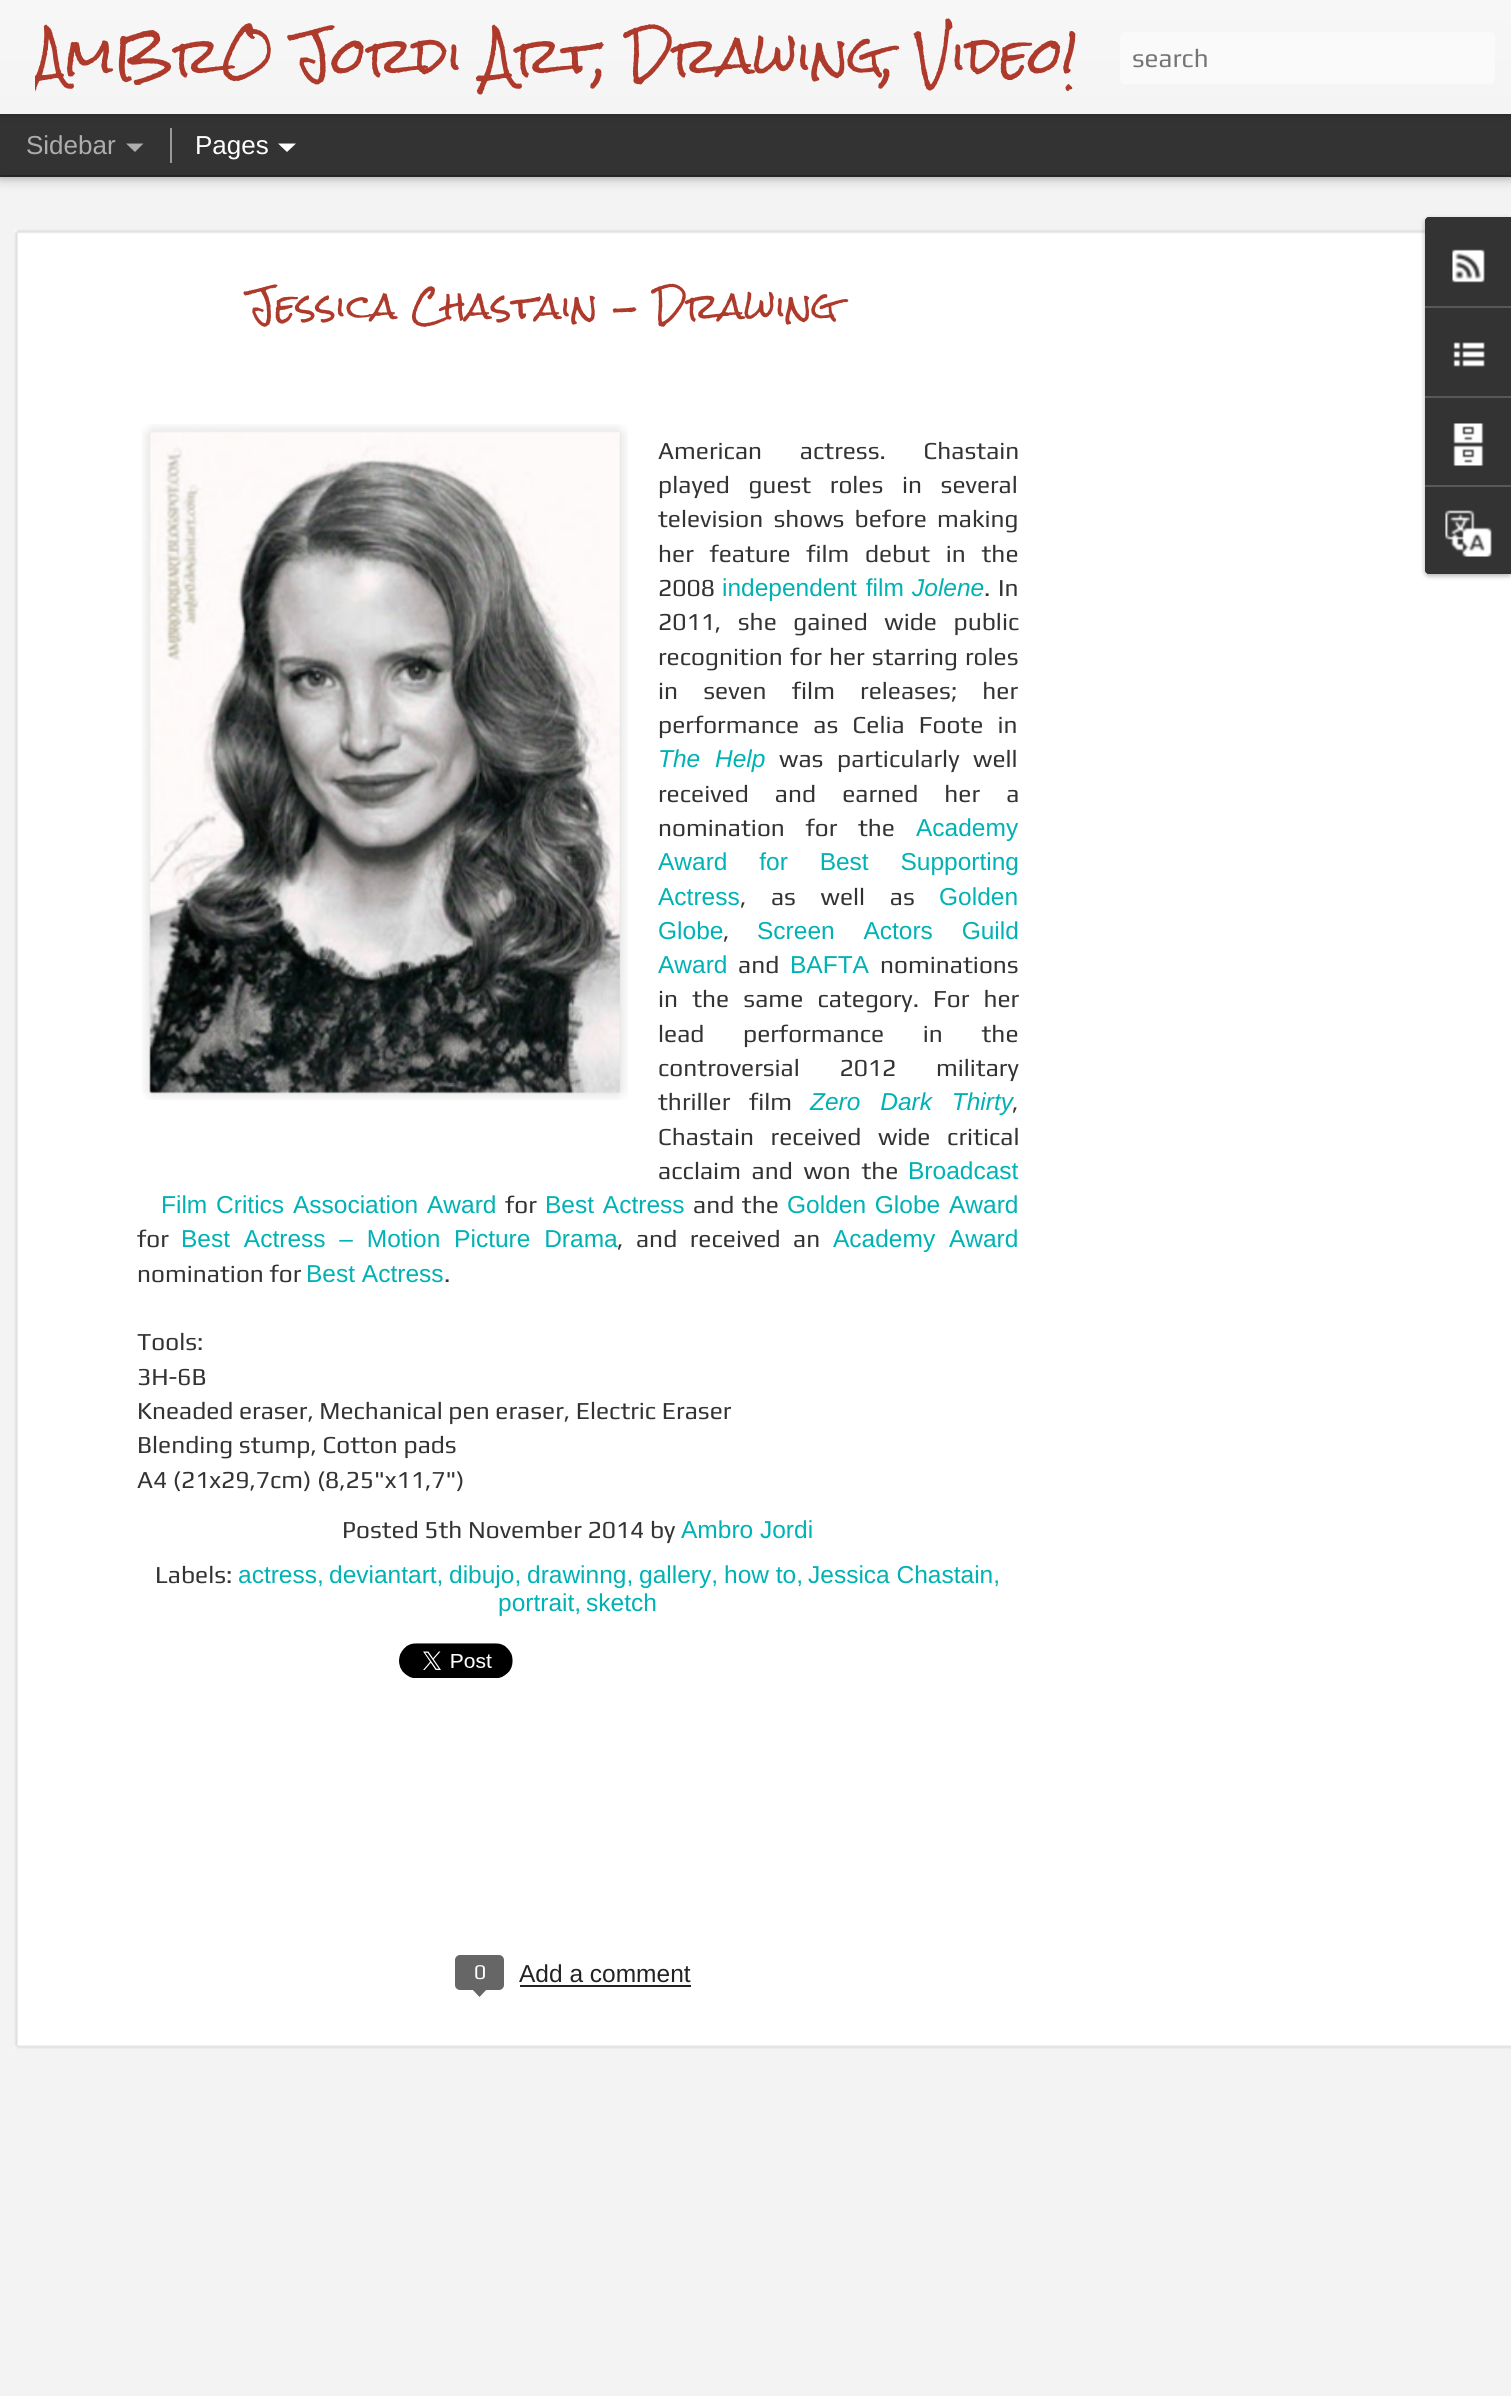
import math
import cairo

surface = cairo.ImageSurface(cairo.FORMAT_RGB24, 1511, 2396)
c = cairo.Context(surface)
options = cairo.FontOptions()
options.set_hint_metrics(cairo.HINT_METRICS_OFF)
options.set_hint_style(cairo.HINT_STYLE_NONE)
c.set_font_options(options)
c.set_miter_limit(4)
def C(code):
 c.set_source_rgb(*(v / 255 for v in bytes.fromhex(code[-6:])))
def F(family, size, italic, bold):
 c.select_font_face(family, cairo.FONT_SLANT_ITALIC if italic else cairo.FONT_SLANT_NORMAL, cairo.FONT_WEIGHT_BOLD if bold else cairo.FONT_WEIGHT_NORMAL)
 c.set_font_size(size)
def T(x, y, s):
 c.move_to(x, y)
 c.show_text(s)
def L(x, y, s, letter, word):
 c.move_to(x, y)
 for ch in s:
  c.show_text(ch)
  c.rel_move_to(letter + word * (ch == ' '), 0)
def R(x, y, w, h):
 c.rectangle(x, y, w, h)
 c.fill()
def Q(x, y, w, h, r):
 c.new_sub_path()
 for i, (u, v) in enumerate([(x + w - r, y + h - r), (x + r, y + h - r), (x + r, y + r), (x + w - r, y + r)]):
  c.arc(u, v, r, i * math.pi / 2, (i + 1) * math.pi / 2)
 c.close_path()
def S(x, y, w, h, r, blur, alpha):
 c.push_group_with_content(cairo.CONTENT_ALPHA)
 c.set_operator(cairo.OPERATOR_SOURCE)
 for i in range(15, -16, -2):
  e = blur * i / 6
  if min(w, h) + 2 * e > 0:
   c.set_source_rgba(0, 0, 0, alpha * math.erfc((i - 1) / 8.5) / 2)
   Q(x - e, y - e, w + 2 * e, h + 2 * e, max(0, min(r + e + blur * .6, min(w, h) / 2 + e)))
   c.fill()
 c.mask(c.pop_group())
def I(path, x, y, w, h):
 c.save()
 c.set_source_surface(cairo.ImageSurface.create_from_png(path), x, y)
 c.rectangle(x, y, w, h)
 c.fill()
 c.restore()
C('333333')
c.paint()
C('f3f3f3')
R(0,177,1511,2219)
C('000000')
S(0,114,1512,61,0,7,.5)
C('333333')
R(0,114,1511,61)
C('999999')
R(170,128,2,35)
C('000000')
S(0,0,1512,114,0,4.5,.3)
gradient = cairo.LinearGradient(0,0,0,114)
gradient.add_color_stop_rgba(0,0.969,0.969,0.969,1)
gradient.add_color_stop_rgba(1,0.957,0.957,0.957,1)
c.set_source(gradient)
R(0,0,1511,114)
c.save()
c.rectangle(35,0,1066,114)
c.clip()
F('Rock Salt',49,0,0)
C('ad3a2b')
T(35,75,'AmBrO Jordi Art, Drawing, Video!')
c.restore()
C('fafafa')
Q(1120,32,375,52,5)
c.fill()
F('Play',26,0,0)
C('757575')
T(1132,67,'search')
F('Liberation Sans',26,0,0)
C('adadad')
T(26,154,'Sidebar')
c.new_path()
c.move_to(126,143.5)
c.line_to(143.5,143.5)
c.line_to(135,152)
c.close_path()
c.fill()
C('ffffff')
T(195,154,'Pages')
c.new_path()
c.move_to(278,143.5)
c.line_to(296,143.5)
c.line_to(287,152)
c.close_path()
c.fill()
R(14,229,1497,1820)
I('1.png',14,229,1497,1820)
F('Rock Salt',35,0,0)
C('ad3a2b')
T(248,320,'Jessica Chastain - Drawing')
I('2.png',142,424,486,676)
I('3.png',149,431,471,663)
F('Play',24.5,0,0)
C('333333')
L(658,459,'American actress. Chastain',0,32)
L(658,493,'played guest roles in several',0,13)
L(658,527,'television shows before making',0,4.5)
L(658,562,'her feature film debut in the',0,10)
T(658,596,'2008')
F('Liberation Sans',24.5,0,0)
C('00b2b4')
L(722,596,'independent film',0,2)
F('Liberation Sans',24.5,1,0)
T(912,596,'Jolene')
F('Play',24.5,0,0)
C('333333')
L(984,596,'. In',0,2)
L(658,630,'2011, she gained wide public',0,11)
L(658,665,'recognition for her starring roles',0,1.5)
L(658,699,'in seven film releases; her',0,19.5)
L(658,733,'performance as Celia Foote in',0,8.5)
F('Liberation Sans',24.5,1,0)
C('00b2b4')
L(658,767,'The Help',0,8)
F('Play',24.5,0,0)
C('333333')
L(779,767,'was particularly well',0,8)
L(658,802,'received and earned her a',0,20.5)
L(658,836,'nomination for the',0,15)
F('Liberation Sans',24.5,0,0)
C('00b2b4')
T(916,836,'Academy')
L(658,870,'Award for Best Supporting',0,25)
T(658,905,'Actress')
F('Play',24.5,0,0)
C('333333')
L(740,905,', as well as',0,19)
F('Liberation Sans',24.5,0,0)
C('00b2b4')
T(939,905,'Golden')
T(658,939,'Globe')
F('Play',24.5,0,0)
C('333333')
T(723,939,',')
F('Liberation Sans',24.5,0,0)
C('00b2b4')
L(757,939,'Screen Actors Guild',0,22)
T(658,973,'Award')
F('Play',24.5,0,0)
C('333333')
T(738,973,'and')
F('Liberation Sans',24.5,0,0)
C('00b2b4')
T(790,973,'BAFTA')
F('Play',24.5,0,0)
C('333333')
T(880,973,'nominations')
L(658,1007,'in the same category. For her',0,8.5)
L(658,1042,'lead performance in the',0,33)
L(658,1076,'controversial 2012 military',0,34)
L(658,1110,'thriller film',0,13)
F('Liberation Sans',24.5,1,0)
C('00b2b4')
L(810,1110,'Zero Dark Thirty',0,13)
F('Play',24.5,0,0)
C('333333')
T(1012,1110,',')
L(658,1145,'Chastain received wide critical',0,11)
L(658,1179,'acclaim and won the',0,5)
F('Liberation Sans',24.5,0,0)
C('00b2b4')
T(908,1179,'Broadcast')
L(161,1213,'Film Critics Association Award',0,2)
F('Play',24.5,0,0)
C('333333')
T(505,1213,'for')
F('Liberation Sans',24.5,0,0)
C('00b2b4')
L(545,1213,'Best Actress',0,2)
F('Play',24.5,0,0)
C('333333')
L(693,1213,'and the',0,2)
F('Liberation Sans',24.5,0,0)
C('00b2b4')
L(787,1213,'Golden Globe Award',0,2)
F('Play',24.5,0,0)
C('333333')
T(137,1247,'for')
F('Liberation Sans',24.5,0,0)
C('00b2b4')
L(181,1247,'Best Actress – Motion Picture Drama',0,7)
F('Play',24.5,0,0)
C('333333')
L(617,1247,', and received an',0,7)
F('Liberation Sans',24.5,0,0)
C('00b2b4')
L(833,1247,'Academy Award',0,7)
F('Play',24.5,0,0)
C('333333')
T(137,1282,'nomination for')
F('Liberation Sans',24.5,0,0)
C('00b2b4')
T(306,1282,'Best Actress')
F('Play',24.5,0,0)
C('333333')
T(444,1282,'.')
T(137,1350,'Tools:')
T(137,1385,'3H-6B')
T(137,1419,'Kneaded eraser, Mechanical pen eraser, Electric Eraser')
T(137,1453,'Blending stump, Cotton pads')
T(137,1488,'A4 (21x29,7cm) (8,25"x11,7")')
T(342,1538,'Posted 5th November 2014 by')
F('Liberation Sans',24.5,0,0)
C('00b2b4')
T(681,1538,'Ambro Jordi')
F('Play',24.5,0,0)
C('333333')
T(155,1583,'Labels:')
F('Liberation Sans',24.5,0,0)
C('00b2b4')
T(238,1583,'actress,')
T(329,1583,'deviantart,')
T(449,1583,'dibujo,')
T(527,1583,'drawinng,')
T(639,1583,'gallery,')
T(724,1583,'how to,')
T(808,1583,'Jessica Chastain,')
T(498,1611,'portrait,')
T(586,1611,'sketch')
I('4.png',399,1643,114,35)
C('666666')
Q(456,1956,47,33,4)
c.fill_preserve()
c.stroke()
F('Play',21,0,0)
C('ffffff')
T(474,1979,'0')
C('666666')
c.new_path()
c.move_to(471,1988)
c.line_to(488,1988)
c.line_to(479.5,1997)
c.close_path()
c.fill()
F('Liberation Sans',24.5,0,0)
C('222222')
T(519,1982,'Add a comment')
R(520,1985,171,2)
C('000000')
S(1425,219,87,357,4,2.5,.3)
C('333333')
c.new_path()
c.move_to(1429,217)
c.line_to(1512,217)
c.line_to(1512,574)
c.line_to(1429,574)
c.curve_to(1427,574,1425,572,1425,570)
c.line_to(1425,221)
c.curve_to(1425,219,1427,217,1429,217)
c.close_path()
c.fill()
c.new_path()
c.move_to(1429,217)
c.line_to(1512,217)
c.line_to(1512,306)
c.line_to(1425,306)
c.line_to(1425,221)
c.curve_to(1425,219,1427,217,1429,217)
c.close_path()
c.fill()
I('5.png',1452,249,33,34)
C('585858')
R(1425,306,86,2)
I('6.png',1453,342,32,25)
R(1425,396,86,2)
I('7.png',1453,423,31,43)
C('333333')
c.new_path()
c.move_to(1425,485)
c.line_to(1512,485)
c.line_to(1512,574)
c.line_to(1429,574)
c.curve_to(1427,574,1425,572,1425,570)
c.close_path()
c.fill()
C('585858')
R(1425,485,86,2)
I('8.png',1445,510,47,47)
surface.write_to_png('o.png')
